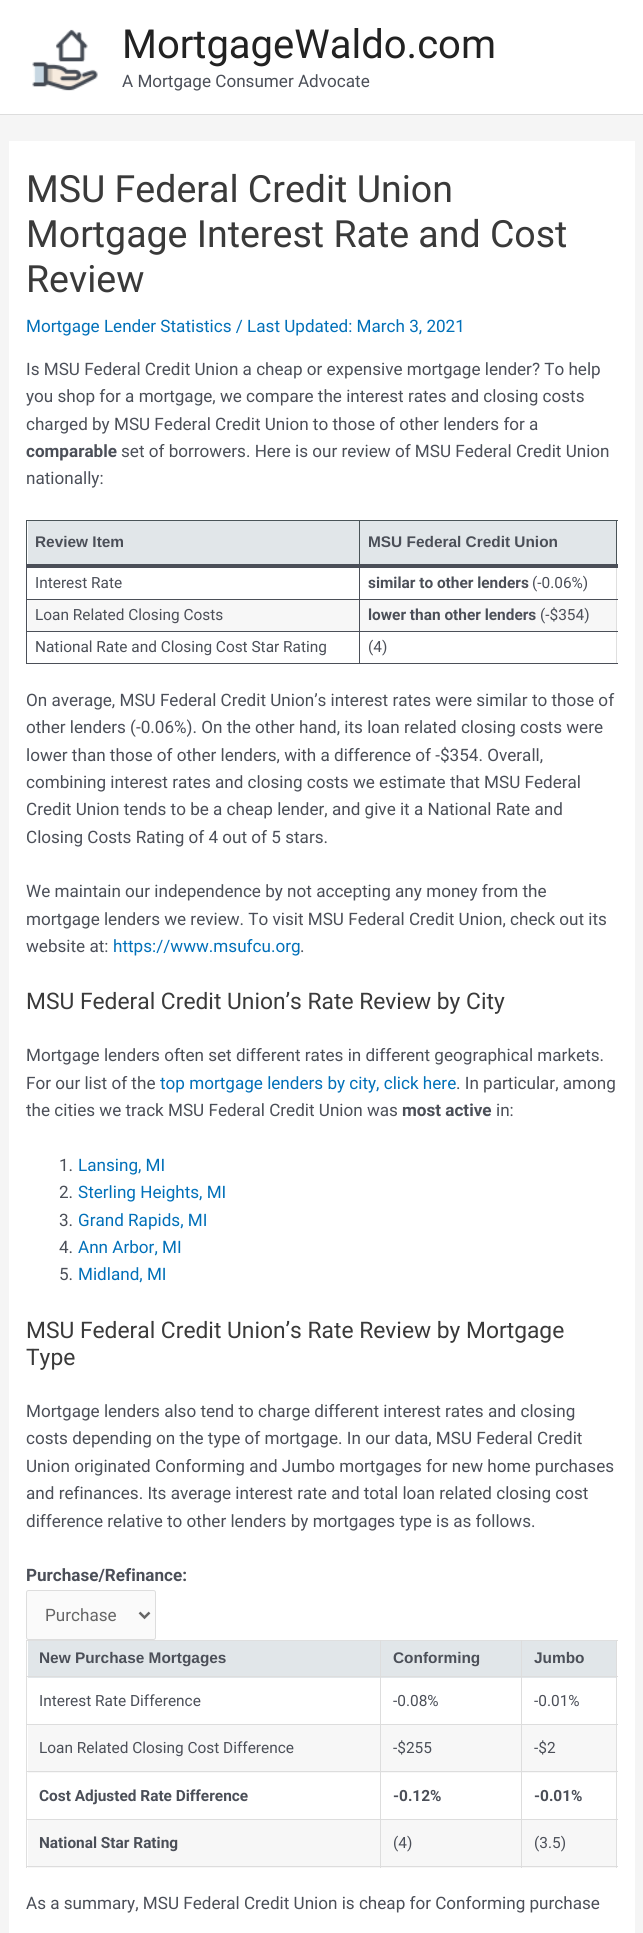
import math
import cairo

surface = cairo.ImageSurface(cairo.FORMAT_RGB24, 643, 1933)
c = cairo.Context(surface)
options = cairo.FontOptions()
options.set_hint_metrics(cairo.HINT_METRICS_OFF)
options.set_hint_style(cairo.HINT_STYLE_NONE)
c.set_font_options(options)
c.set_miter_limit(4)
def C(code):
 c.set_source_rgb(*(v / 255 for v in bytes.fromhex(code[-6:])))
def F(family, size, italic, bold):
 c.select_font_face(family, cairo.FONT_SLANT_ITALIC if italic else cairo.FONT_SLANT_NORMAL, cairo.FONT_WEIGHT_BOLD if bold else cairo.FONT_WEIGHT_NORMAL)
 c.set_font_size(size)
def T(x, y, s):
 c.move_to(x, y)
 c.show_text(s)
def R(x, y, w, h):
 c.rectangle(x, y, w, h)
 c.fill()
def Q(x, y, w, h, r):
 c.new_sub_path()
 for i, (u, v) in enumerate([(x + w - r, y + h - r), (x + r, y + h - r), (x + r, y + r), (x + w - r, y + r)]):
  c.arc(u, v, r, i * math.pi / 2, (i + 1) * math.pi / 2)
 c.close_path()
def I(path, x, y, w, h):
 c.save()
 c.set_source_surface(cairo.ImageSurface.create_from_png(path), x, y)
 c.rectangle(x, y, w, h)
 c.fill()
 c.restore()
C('f5f5f5')
c.paint()
C('ffffff')
R(0,0,643,114)
C('dddddd')
R(0,114,643,1)
I('1.png',32,29,66,62)
F('Roboto',40,0,0)
C('222222')
T(122,58,'MortgageWaldo.com')
F('Roboto',17.1,0,0)
C('4b4f58')
T(122,87,'A Mortgage Consumer Advocate')
C('ffffff')
R(9,141,626,1792)
F('Roboto',37.5,0,0)
C('3a3a3a')
T(26,202,'MSU Federal Credit Union')
T(26,247,'Mortgage Interest Rate and Cost')
T(26,292,'Review')
F('Roboto',17.1,0,0)
C('0170b9')
T(26,332,'Mortgage Lender Statistics / Last Updated: March 3, 2021')
C('4b4f58')
T(26,375,'Is MSU Federal Credit Union a cheap or expensive mortgage lender? To help')
T(26,402,'you shop for a mortgage, we compare the interest rates and closing costs')
T(26,430,'charged by MSU Federal Credit Union to those of other lenders for a')
F('Roboto',17.1,0,1)
T(26,457,'comparable')
F('Roboto',17.1,0,0)
T(121,457,'set of borrowers. Here is our review of MSU Federal Credit Union')
T(26,484,'nationally:')
C('dfdfdf')
R(616,568,1,96)
C('4a5458')
R(359,520,259,1)
C('e1e6e9')
R(28,521,588,43)
C('4b4f58')
R(359,599,259,1)
C('f7f7f7')
R(28,600,588,31)
C('4b4f58')
R(359,631,259,1)
R(359,663,259,1)
R(359,631,1,33)
R(26,631,334,1)
R(359,599,1,34)
R(26,599,334,1)
R(359,565,1,35)
C('4a5458')
R(359,520,1,46)
R(26,520,334,1)
C('4b4f58')
R(26,663,334,1)
R(26,631,1,33)
R(26,565,1,68)
C('4a5458')
R(26,520,1,46)
R(616,520,1,46)
C('4b4f58')
R(26,564,592,4)
F('Liberation Sans',15.4,0,1)
T(35,547,'Review Item')
T(368,547,'MSU Federal Credit Union')
F('Roboto',15.4,0,0)
T(35,588,'Interest Rate')
F('Roboto',15.4,0,1)
T(368,588,'similar to other lenders')
F('Roboto',15.4,0,0)
T(532,588,'(-0.06%)')
T(35,620,'Loan Related Closing Costs')
F('Roboto',15.4,0,1)
T(368,620,'lower than other lenders')
F('Roboto',15.4,0,0)
T(540,620,'(-$354)')
T(35,652,'National Rate and Closing Cost Star Rating')
T(368,652,'(4)')
F('Roboto',17.1,0,0)
T(26,706,'On average, MSU Federal Credit Union’s interest rates were similar to those of')
T(26,733,'other lenders (-0.06%). On the other hand, its loan related closing costs were')
T(26,761,'lower than those of other lenders, with a difference of -$354. Overall,')
T(26,788,'combining interest rates and closing costs we estimate that MSU Federal')
T(26,815,'Credit Union tends to be a cheap lender, and give it a National Rate and')
T(26,843,'Closing Costs Rating of 4 out of 5 stars.')
T(26,897,'We maintain our independence by not accepting any money from the')
T(26,925,'mortgage lenders we review. To visit MSU Federal Credit Union, check out its')
T(26,952,'website at:')
C('0170b9')
T(113,952,'https://www.msufcu.org')
C('4b4f58')
T(300,952,'.')
F('Roboto',22.8,0,0)
C('3a3a3a')
T(26,1009,'MSU Federal Credit Union’s Rate Review by City')
F('Roboto',17.1,0,0)
C('4b4f58')
T(26,1061,'Mortgage lenders often set different rates in different geographical markets.')
T(26,1089,'For our list of the')
C('0170b9')
T(160,1089,'top mortgage lenders by city, click here')
C('4b4f58')
T(456,1089,'. In particular, among')
T(26,1116,'the cities we track MSU Federal Credit Union was')
F('Roboto',17.1,0,1)
T(402,1116,'most active')
F('Roboto',17.1,0,0)
T(496,1116,'in:')
T(59,1171,'1.')
C('0170b9')
T(78,1171,'Lansing, MI')
C('4b4f58')
T(59,1198,'2.')
C('0170b9')
T(78,1198,'Sterling Heights, MI')
C('4b4f58')
T(59,1226,'3.')
C('0170b9')
T(78,1226,'Grand Rapids, MI')
C('4b4f58')
T(59,1253,'4.')
C('0170b9')
T(78,1253,'Ann Arbor, MI')
C('4b4f58')
T(59,1280,'5.')
C('0170b9')
T(78,1280,'Midland, MI')
F('Roboto',22.8,0,0)
C('3a3a3a')
T(26,1338,'MSU Federal Credit Union’s Rate Review by Mortgage')
T(26,1365,'Type')
F('Roboto',17.1,0,0)
C('4b4f58')
T(26,1417,'Mortgage lenders also tend to charge different interest rates and closing')
T(26,1444,'costs depending on the type of mortgage. In our data, MSU Federal Credit')
T(26,1472,'Union originated Conforming and Jumbo mortgages for new home purchases')
T(26,1499,'and refinances. Its average interest rate and total loan related closing cost')
T(26,1527,'difference relative to other lenders by mortgages type is as follows.')
F('Roboto',17.1,0,1)
T(26,1581,'Purchase/Refinance:')
C('fafafa')
Q(26.5,1590.5,129,49,2)
c.fill_preserve()
C('dddddd')
c.set_line_width(1)
c.stroke()
c.new_path()
c.move_to(139.5,1612.5)
c.line_to(144.5,1617.5)
c.line_to(149.5,1612.5)
C('666666')
c.set_line_width(2.5)
c.stroke()
F('Roboto',17.1,0,0)
T(45,1621,'Purchase')
C('dfdfdf')
R(26,1640,592,1)
R(616,1678,1,190)
R(26,1640,1,228)
C('e1e6e9')
R(28,1641,588,37)
C('dddddd')
R(616,1640,1,38)
C('f7f7f7')
R(28,1725,588,48)
R(28,1820,588,48)
C('dddddd')
R(521,1866,97,1)
R(521,1819,1,49)
R(521,1819,97,1)
R(521,1771,1,49)
R(521,1771,97,1)
R(521,1724,1,49)
R(521,1724,97,1)
R(521,1676,1,49)
R(521,1676,97,1)
R(521,1640,1,38)
R(380,1866,143,1)
R(380,1819,1,49)
R(380,1819,143,1)
R(380,1771,1,49)
R(380,1771,143,1)
R(380,1724,1,49)
R(380,1724,143,1)
R(380,1676,1,49)
R(380,1676,143,1)
R(380,1640,1,38)
R(26,1676,355,1)
F('Liberation Sans',15.4,0,1)
C('4b4f58')
T(39,1663,'New Purchase Mortgages')
T(393,1663,'Conforming')
T(534,1663,'Jumbo')
C('dddddd')
R(26,1724,355,1)
F('Roboto',15.4,0,0)
C('4b4f58')
T(39,1706,'Interest Rate Difference')
T(393,1706,'-0.08%')
T(534,1706,'-0.01%')
C('dddddd')
R(26,1771,355,1)
C('4b4f58')
T(39,1753,'Loan Related Closing Cost Difference')
T(393,1753,'-$255')
T(534,1753,'-$2')
C('dddddd')
R(26,1819,355,1)
F('Roboto',15.4,0,1)
C('4b4f58')
T(39,1801,'Cost Adjusted Rate Difference')
T(393,1801,'-0.12%')
T(534,1801,'-0.01%')
C('dddddd')
R(26,1866,355,1)
C('4b4f58')
T(39,1848,'National Star Rating')
F('Roboto',15.4,0,0)
T(393,1848,'(4)')
T(534,1848,'(3.5)')
F('Roboto',17.1,0,0)
T(26,1909,'As a summary, MSU Federal Credit Union is cheap for Conforming purchase')
surface.write_to_png('o.png')
